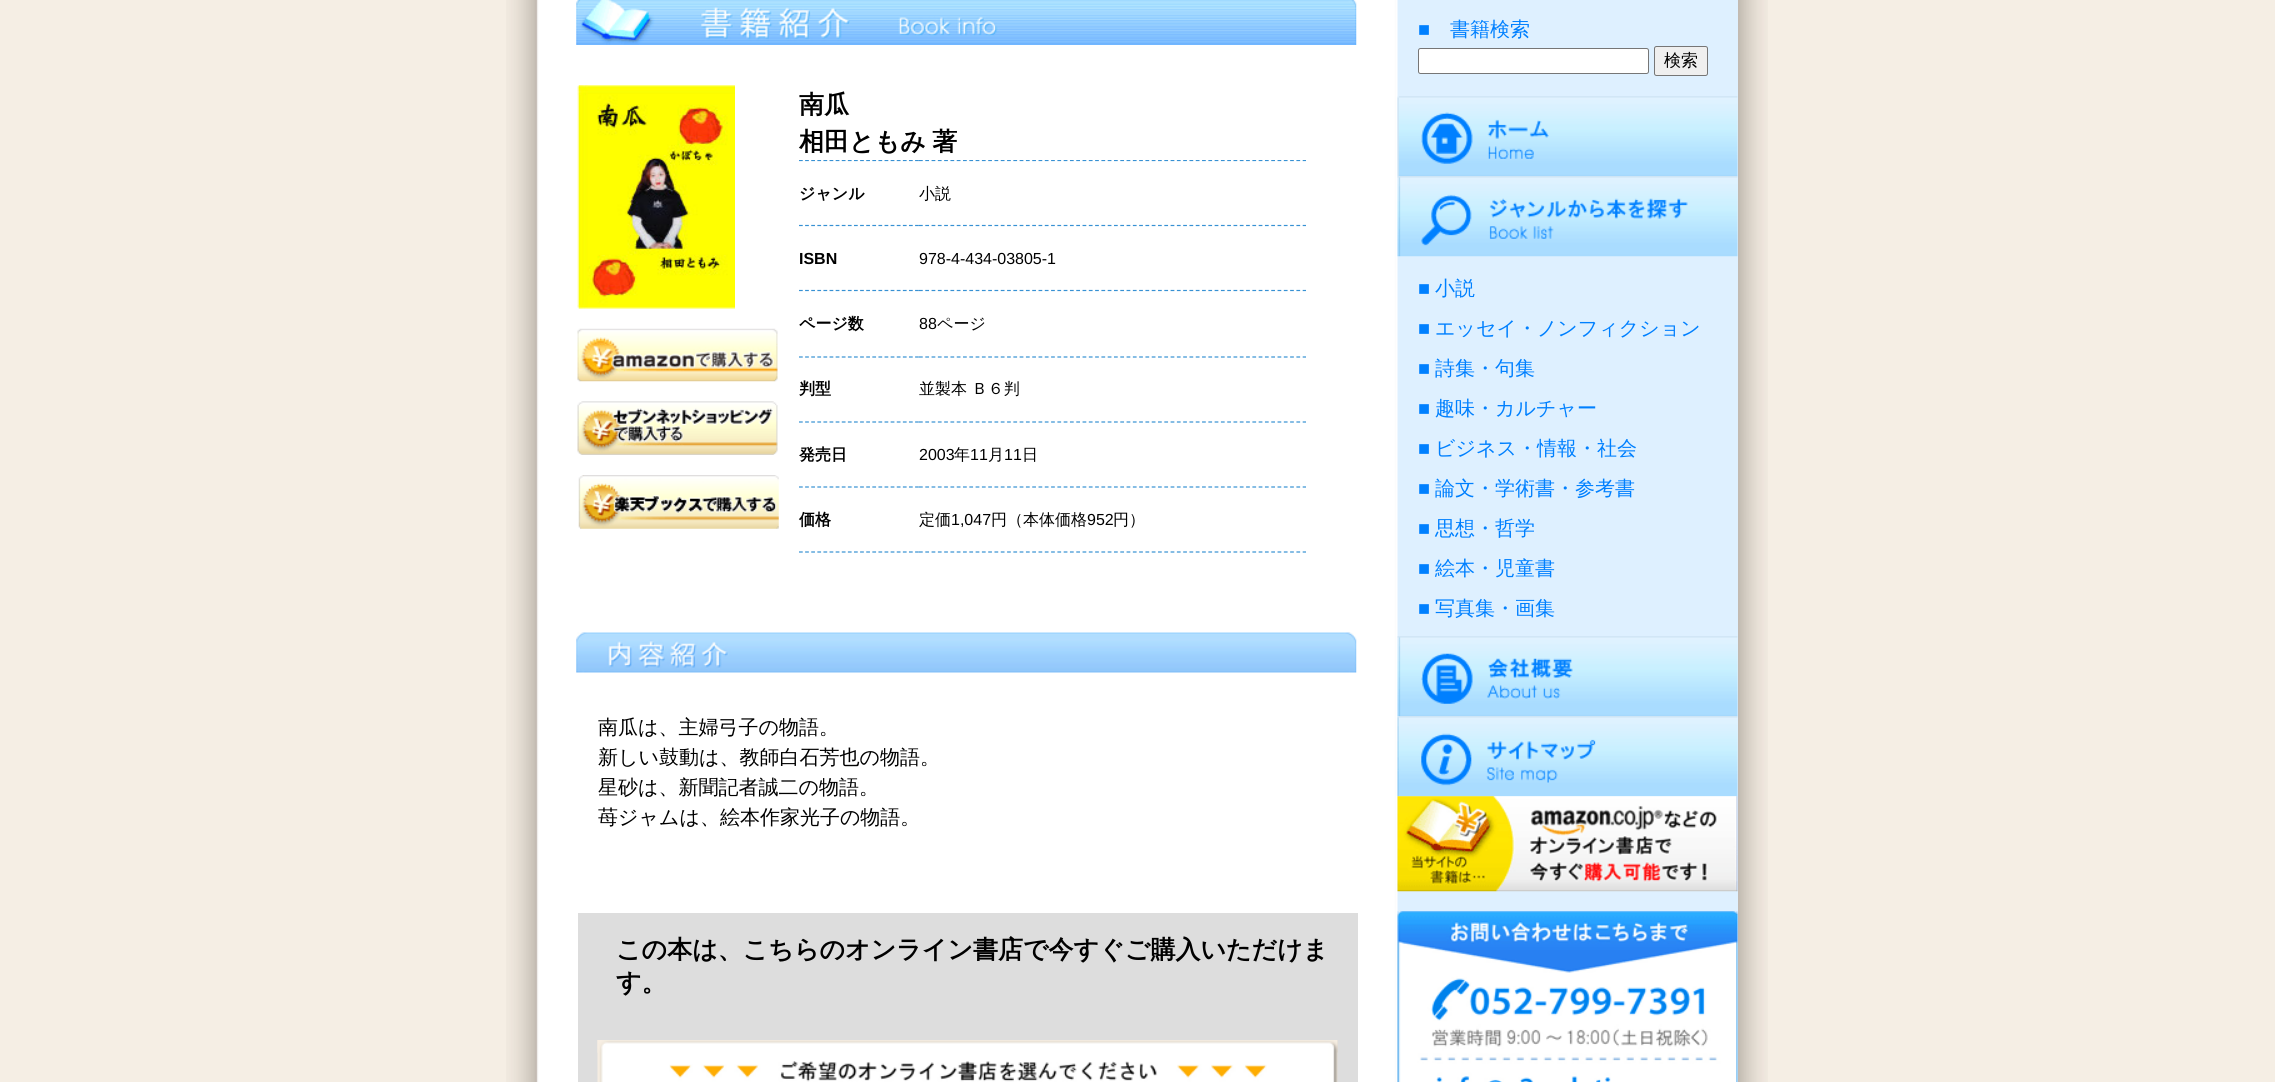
import math
import cairo

surface = cairo.ImageSurface(cairo.FORMAT_RGB24, 2275, 1082)
c = cairo.Context(surface)
options = cairo.FontOptions()
options.set_hint_metrics(cairo.HINT_METRICS_OFF)
options.set_hint_style(cairo.HINT_STYLE_NONE)
c.set_font_options(options)
c.set_miter_limit(4)
def C(code):
 c.set_source_rgb(*(v / 255 for v in bytes.fromhex(code[-6:])))
def F(family, size, italic, bold):
 c.select_font_face(family, cairo.FONT_SLANT_ITALIC if italic else cairo.FONT_SLANT_NORMAL, cairo.FONT_WEIGHT_BOLD if bold else cairo.FONT_WEIGHT_NORMAL)
 c.set_font_size(size)
def T(x, y, s):
 c.move_to(x, y)
 c.show_text(s)
def L(x, y, s, letter, word):
 c.move_to(x, y)
 for ch in s:
  c.show_text(ch)
  c.rel_move_to(letter + word * (ch == ' '), 0)
def R(x, y, w, h):
 c.rectangle(x, y, w, h)
 c.fill()
def Q(x, y, w, h, r):
 c.new_sub_path()
 for i, (u, v) in enumerate([(x + w - r, y + h - r), (x + r, y + h - r), (x + r, y + r), (x + w - r, y + r)]):
  c.arc(u, v, r, i * math.pi / 2, (i + 1) * math.pi / 2)
 c.close_path()
def I(path, x, y, w, h):
 c.save()
 c.set_source_surface(cairo.ImageSurface.create_from_png(path), x, y)
 c.rectangle(x, y, w, h)
 c.fill()
 c.restore()
C('f5eee4')
c.paint()
I('1.png',506,0,1262,1082)
I('2.png',537,0,861,1082)
I('3.png',576,0,781,45)
I('4.png',577,85,158,224)
I('5.png',577,328,201,54)
I('6.png',577,401,201,54)
I('7.png',578,475,201,54)
F('WenQuanYi Zen Hei',25,0,1)
C('000000')
T(799,113,'南瓜')
L(799,150,'相田ともみ 著',0,-1)
c.save()
c.rectangle(779,160,537,433)
c.clip()
c.new_path()
c.move_to(799,160.5)
c.line_to(919,160.5)
C('3791d3')
c.set_line_width(1.2)
c.set_dash([3.75,2.36])
c.stroke()
c.restore()
c.new_path()
c.move_to(799,225.5)
c.line_to(919,225.5)
C('3791d3')
c.set_line_width(1.2)
c.set_dash([3.75,2.36])
c.stroke()
F('WenQuanYi Zen Hei',16,0,1)
C('000000')
T(799,199,'ジャンル')
c.save()
c.rectangle(779,160,537,433)
c.clip()
c.new_path()
c.move_to(919,160.5)
c.line_to(1306,160.5)
C('3791d3')
c.set_dash([3.75,2.54])
c.stroke()
c.restore()
c.new_path()
c.move_to(919,225.5)
c.line_to(1306,225.5)
C('3791d3')
c.set_dash([3.75,2.54])
c.stroke()
F('WenQuanYi Zen Hei Medium',16,0,0)
C('000000')
T(919,199,'小説')
c.new_path()
c.move_to(799,290.5)
c.line_to(919,290.5)
C('3791d3')
c.set_dash([3.75,2.36])
c.stroke()
F('Liberation Sans',16,0,1)
C('000000')
T(799,264,'ISBN')
c.new_path()
c.move_to(919,290.5)
c.line_to(1306,290.5)
C('3791d3')
c.set_dash([3.75,2.54])
c.stroke()
F('Liberation Sans',16,0,0)
C('000000')
T(919,264,'978-4-434-03805-1')
c.new_path()
c.move_to(799,357)
c.line_to(919,357)
C('3791d3')
c.set_dash([3.75,2.36])
c.stroke()
F('WenQuanYi Zen Hei',16,0,1)
C('000000')
T(799,329,'ページ数')
c.new_path()
c.move_to(919,357)
c.line_to(1306,357)
C('3791d3')
c.set_dash([3.75,2.54])
c.stroke()
F('Liberation Sans',16,0,0)
C('000000')
T(919,329,'88')
F('WenQuanYi Zen Hei Medium',16,0,0)
T(937,329,'ページ')
c.new_path()
c.move_to(799,422)
c.line_to(919,422)
C('3791d3')
c.set_dash([3.75,2.36])
c.stroke()
F('WenQuanYi Zen Hei',16,0,1)
C('000000')
T(799,394,'判型')
c.new_path()
c.move_to(919,422)
c.line_to(1306,422)
C('3791d3')
c.set_dash([3.75,2.54])
c.stroke()
F('WenQuanYi Zen Hei Medium',16,0,0)
C('000000')
T(919,394,'並製本 Ｂ６判')
c.new_path()
c.move_to(799,487)
c.line_to(919,487)
C('3791d3')
c.set_dash([3.75,2.36])
c.stroke()
F('WenQuanYi Zen Hei',16,0,1)
C('000000')
T(799,460,'発売日')
c.new_path()
c.move_to(919,487)
c.line_to(1306,487)
C('3791d3')
c.set_dash([3.75,2.54])
c.stroke()
F('Liberation Sans',16,0,0)
C('000000')
T(919,460,'2003')
F('WenQuanYi Zen Hei Medium',16,0,0)
T(954,460,'年')
F('Liberation Sans',16,0,0)
T(970,460,'11')
F('WenQuanYi Zen Hei Medium',16,0,0)
T(988,460,'月')
F('Liberation Sans',16,0,0)
T(1004,460,'11')
F('WenQuanYi Zen Hei Medium',16,0,0)
T(1022,460,'日')
c.new_path()
c.move_to(799,552)
c.line_to(919,552)
C('3791d3')
c.set_dash([3.75,2.36])
c.stroke()
F('WenQuanYi Zen Hei',16,0,1)
C('000000')
T(799,525,'価格')
c.new_path()
c.move_to(919,552)
c.line_to(1306,552)
C('3791d3')
c.set_dash([3.75,2.54])
c.stroke()
F('WenQuanYi Zen Hei Medium',16,0,0)
C('000000')
T(919,525,'定価')
F('Liberation Sans',16,0,0)
T(951,525,'1,047')
F('WenQuanYi Zen Hei Medium',16,0,0)
T(991,525,'円（本体価格')
F('Liberation Sans',16,0,0)
T(1087,525,'952')
F('WenQuanYi Zen Hei Medium',16,0,0)
T(1113,525,'円）')
I('8.png',576,632,781,41)
F('WenQuanYi Zen Hei Medium',20,0,0)
T(598,734,'南瓜は、主婦弓子の物語。')
T(598,764,'新しい鼓動は、教師白石芳也の物語。')
T(598,794,'星砂は、新聞記者誠二の物語。')
T(598,824,'苺ジャムは、絵本作家光子の物語。')
C('dddddd')
R(578,913,780,169)
F('WenQuanYi Zen Hei',25,0,1)
C('000000')
T(616,958,'この本は、こちらのオンライン書店で今すぐご購入いただけま')
T(616,991,'す。')
I('9.png',597,1040,741,42)
I('10.png',597,1040,741,13)
I('11.png',669,1061,598,21)
C('def0ff')
R(1398,0,340,1082)
F('Liberation Sans',20,0,0)
C('0080ff')
T(1418,36,'■')
F('WenQuanYi Zen Hei Medium',20,0,0)
T(1450,36,'書籍検索')
C('ffffff')
Q(1418.5,48.5,230,25,2)
c.fill_preserve()
C('767676')
c.set_line_width(1)
c.set_dash([])
c.stroke()
C('efefef')
Q(1654.5,46.5,53,29,2)
c.fill_preserve()
C('767676')
c.stroke()
F('WenQuanYi Zen Hei Medium',17,0,0)
C('000000')
T(1664,66,'検索')
I('12.png',1397,96,341,81)
I('13.png',1397,176,341,81)
F('Liberation Sans',20,0,0)
C('0080ff')
T(1418,295,'■')
F('WenQuanYi Zen Hei Medium',20,0,0)
T(1435,295,'小説')
F('Liberation Sans',20,0,0)
T(1418,335,'■')
F('WenQuanYi Zen Hei Medium',20,0,0)
T(1435,335,'エッセイ・ノンフィクション')
F('Liberation Sans',20,0,0)
T(1418,375,'■')
F('WenQuanYi Zen Hei Medium',20,0,0)
T(1435,375,'詩集・句集')
F('Liberation Sans',20,0,0)
T(1418,415,'■')
F('WenQuanYi Zen Hei Medium',20,0,0)
T(1435,415,'趣味・カルチャー')
F('Liberation Sans',20,0,0)
T(1418,455,'■')
F('WenQuanYi Zen Hei Medium',20,0,0)
T(1435,455,'ビジネス・情報・社会')
F('Liberation Sans',20,0,0)
T(1418,495,'■')
F('WenQuanYi Zen Hei Medium',20,0,0)
T(1435,495,'論文・学術書・参考書')
F('Liberation Sans',20,0,0)
T(1418,535,'■')
F('WenQuanYi Zen Hei Medium',20,0,0)
T(1435,535,'思想・哲学')
F('Liberation Sans',20,0,0)
T(1418,575,'■')
F('WenQuanYi Zen Hei Medium',20,0,0)
T(1435,575,'絵本・児童書')
F('Liberation Sans',20,0,0)
T(1418,615,'■')
F('WenQuanYi Zen Hei Medium',20,0,0)
T(1435,615,'写真集・画集')
I('14.png',1397,636,341,81)
I('15.png',1397,716,341,81)
I('16.png',1397,796,341,96)
I('17.png',1397,911,341,171)
surface.write_to_png('o.png')
